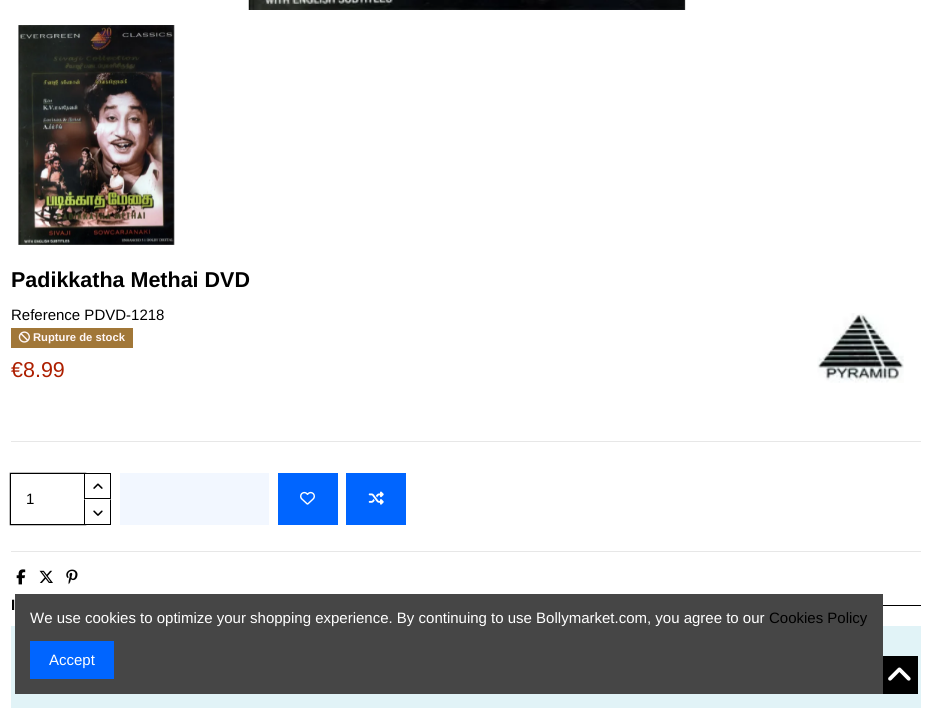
import math
import cairo

surface = cairo.ImageSurface(cairo.FORMAT_RGB24, 932, 708)
c = cairo.Context(surface)
options = cairo.FontOptions()
options.set_hint_metrics(cairo.HINT_METRICS_OFF)
options.set_hint_style(cairo.HINT_STYLE_NONE)
c.set_font_options(options)
c.set_miter_limit(4)
def C(code):
 c.set_source_rgb(*(v / 255 for v in bytes.fromhex(code[-6:])))
def F(family, size, italic, bold):
 c.select_font_face(family, cairo.FONT_SLANT_ITALIC if italic else cairo.FONT_SLANT_NORMAL, cairo.FONT_WEIGHT_BOLD if bold else cairo.FONT_WEIGHT_NORMAL)
 c.set_font_size(size)
def T(x, y, s):
 c.move_to(x, y)
 c.show_text(s)
def R(x, y, w, h):
 c.rectangle(x, y, w, h)
 c.fill()
def Q(x, y, w, h, r):
 c.new_sub_path()
 for i, (u, v) in enumerate([(x + w - r, y + h - r), (x + r, y + h - r), (x + r, y + r), (x + w - r, y + r)]):
  c.arc(u, v, r, i * math.pi / 2, (i + 1) * math.pi / 2)
 c.close_path()
def S(x, y, w, h, r, blur, alpha):
 c.push_group_with_content(cairo.CONTENT_ALPHA)
 c.set_operator(cairo.OPERATOR_SOURCE)
 for i in range(15, -16, -2):
  e = blur * i / 6
  if min(w, h) + 2 * e > 0:
   c.set_source_rgba(0, 0, 0, alpha * math.erfc((i - 1) / 8.5) / 2)
   Q(x - e, y - e, w + 2 * e, h + 2 * e, max(0, min(r + e + blur * .6, min(w, h) / 2 + e)))
   c.fill()
 c.mask(c.pop_group())
def I(path, x, y, w, h):
 c.save()
 c.set_source_surface(cairo.ImageSurface.create_from_png(path), x, y)
 c.rectangle(x, y, w, h)
 c.fill()
 c.restore()
C('ffffff')
c.paint()
I('1.png',248,0,438,10)
I('2.png',18,25,157,220)
C('e7e7e7')
R(11,441,910,1)
F('Liberation Sans',21.5,0,1)
C('000000')
T(11,287,'Padikkatha Methai DVD')
F('Liberation Sans',15,0,0)
T(11,320,'Reference PDVD-1218')
C('a17738')
R(11,328,122,20)
I('3.png',18,331,12,12)
F('Liberation Sans',11.25,0,1)
C('fff7f7')
T(33,341,'Rupture de stock')
F('Liberation Sans',21.5,0,0)
C('ad1f00')
T(11,377,'€8.99')
I('4.png',817,313,87,70)
c.save()
c.set_fill_rule(cairo.FILL_RULE_EVEN_ODD)
c.new_path()
c.move_to(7,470)
c.line_to(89,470)
c.line_to(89,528)
c.line_to(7,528)
c.close_path()
c.move_to(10,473)
c.line_to(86,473)
c.line_to(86,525)
c.line_to(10,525)
c.close_path()
c.clip()
C('000000')
S(10,473,76,52,0,.5,1)
c.restore()
c.rectangle(10.5,473.5,75,51)
C('000000')
c.set_line_width(1)
c.stroke()
F('Liberation Sans',15,0,0)
T(26,504,'1')
C('ffffff')
R(85,474,2,24)
c.rectangle(84.5,473.5,26,25)
C('000000')
c.stroke()
I('5.png',93,483,10,6)
C('ffffff')
R(85,499,2,25)
C('000000')
c.new_path()
c.move_to(111,499)
c.line_to(111,525)
c.line_to(110,524)
c.line_to(110,500)
c.close_path()
c.fill()
R(84,524,27,1)
c.new_path()
c.move_to(84,525)
c.line_to(84,499)
c.line_to(85,500)
c.line_to(85,524)
c.close_path()
c.fill()
I('6.png',93,510,10,6)
C('f2f7ff')
R(120,473,149,52)
C('0065ff')
R(278,473,60,52)
I('7.png',300,491,15,14)
R(346,473,60,52)
I('8.png',368,491,16,14)
C('e7e7e7')
R(11,551,910,1)
I('9.png',16,569,10,16)
I('10.png',39,570,14,13)
I('11.png',66,569,12,16)
F('Liberation Sans',15,0,1)
C('000000')
T(11,610,'I')
R(883,605,38,1)
C('e1f3f7')
R(11,626,910,82)
C('464646')
R(15,594,868,100)
F('Liberation Sans',15,0,0)
C('ffffff')
T(30,623,'We use cookies to optimize your shopping experience. By continuing to use Bollymarket.com, you agree to our')
C('000000')
T(769,623,'Cookies Policy')
C('0065ff')
R(30,641,84,38)
C('ffffff')
T(49,665,'Accept')
C('000000')
R(883,656,35,38)
I('12.png',888,667,23,14)
surface.write_to_png('o.png')
